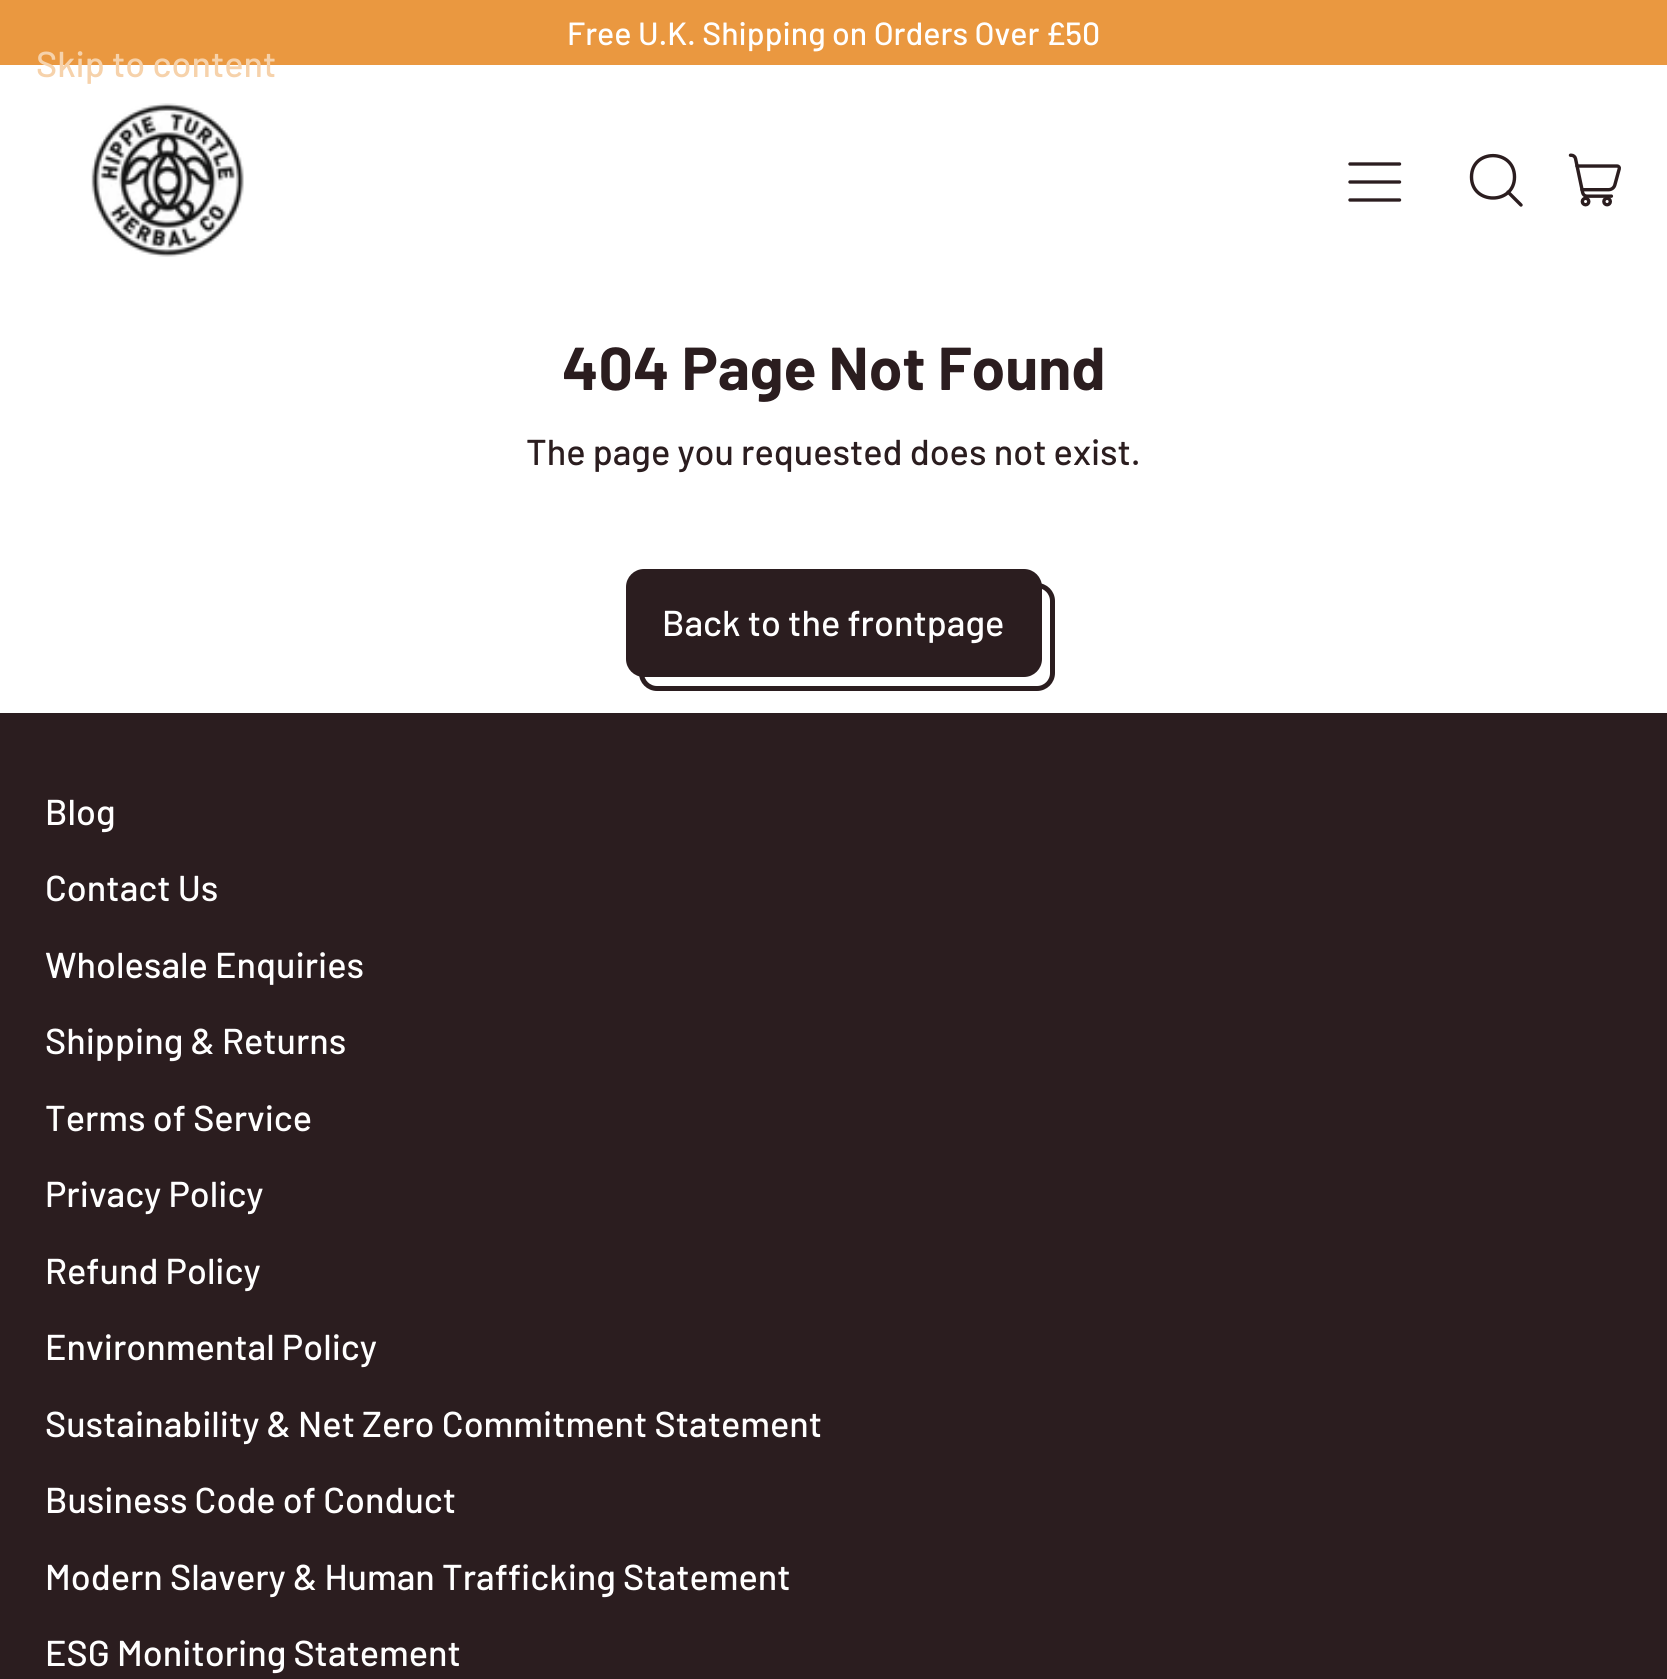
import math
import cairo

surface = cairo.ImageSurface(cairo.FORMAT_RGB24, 1667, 1679)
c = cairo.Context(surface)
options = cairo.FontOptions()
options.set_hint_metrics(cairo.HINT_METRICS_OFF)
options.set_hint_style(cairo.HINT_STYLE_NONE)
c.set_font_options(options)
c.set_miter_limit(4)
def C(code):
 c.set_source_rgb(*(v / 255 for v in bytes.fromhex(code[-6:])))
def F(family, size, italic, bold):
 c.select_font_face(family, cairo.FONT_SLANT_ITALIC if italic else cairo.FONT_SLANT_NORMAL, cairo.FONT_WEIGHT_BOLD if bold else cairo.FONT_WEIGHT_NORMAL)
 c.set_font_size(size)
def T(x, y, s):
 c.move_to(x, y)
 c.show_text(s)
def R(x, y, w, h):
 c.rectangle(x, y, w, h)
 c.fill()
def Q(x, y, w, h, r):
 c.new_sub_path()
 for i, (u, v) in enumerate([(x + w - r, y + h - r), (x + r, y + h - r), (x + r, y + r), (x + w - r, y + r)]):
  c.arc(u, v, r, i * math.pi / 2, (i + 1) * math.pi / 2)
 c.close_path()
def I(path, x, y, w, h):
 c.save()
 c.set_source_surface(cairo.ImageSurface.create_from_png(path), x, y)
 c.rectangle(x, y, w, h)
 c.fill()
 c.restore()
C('ffffff')
c.paint()
C('ea9840')
R(0,0,1667,65)
F('Barlow Medium',32.1,0,0)
C('ffffff')
T(567,45,'Free U.K. Shipping on Orders Over £50')
F('Barlow Medium',36,0,0)
C('f6d2ab')
T(36,77,'Skip to content')
I('1.png',91,103,153,154)
c.new_path()
c.move_to(1399.5,200)
c.line_to(1350,200)
c.move_to(1399.5,182)
c.line_to(1350,182)
c.move_to(1399.5,164)
c.line_to(1350,164)
C('2b1d1f')
c.set_line_width(3.4)
c.set_line_cap(cairo.LINE_CAP_ROUND)
c.set_line_join(cairo.LINE_JOIN_ROUND)
c.stroke()
c.new_path()
c.move_to(1471.5,177)
c.curve_to(1471.5,205,1514.5,205,1514.5,177)
c.curve_to(1514.5,148.5,1471.5,148.5,1471.5,177)
c.close_path()
c.move_to(1521,205)
c.line_to(1508,192)
c.stroke()
I('2.png',1568,153,53,54)
F('Barlow',60.5,0,1)
T(562,390,'404 Page Not Found')
F('Barlow Medium',36,0,0)
T(526,465,'The page you requested does not exist.')
Q(641.5,585.5,411,103,15.5)
c.set_line_width(5)
c.set_line_cap(cairo.LINE_CAP_BUTT)
c.set_line_join(cairo.LINE_JOIN_MITER)
c.stroke()
Q(628.5,571.5,411,103,15.5)
c.fill_preserve()
c.stroke()
C('ffffff')
T(662,636,'Back to the frontpage')
C('2b1d1f')
R(0,713,1667,966)
C('ffffff')
T(45,825,'Blog')
T(45,901,'Contact Us')
T(45,978,'Wholesale Enquiries')
T(45,1054,'Shipping & Returns')
T(45,1131,'Terms of Service')
T(45,1207,'Privacy Policy')
T(45,1284,'Refund Policy')
T(45,1360,'Environmental Policy')
T(45,1437,'Sustainability & Net Zero Commitment Statement')
T(45,1513,'Business Code of Conduct')
T(45,1590,'Modern Slavery & Human Trafficking Statement')
T(45,1666,'ESG Monitoring Statement')
surface.write_to_png('o.png')
